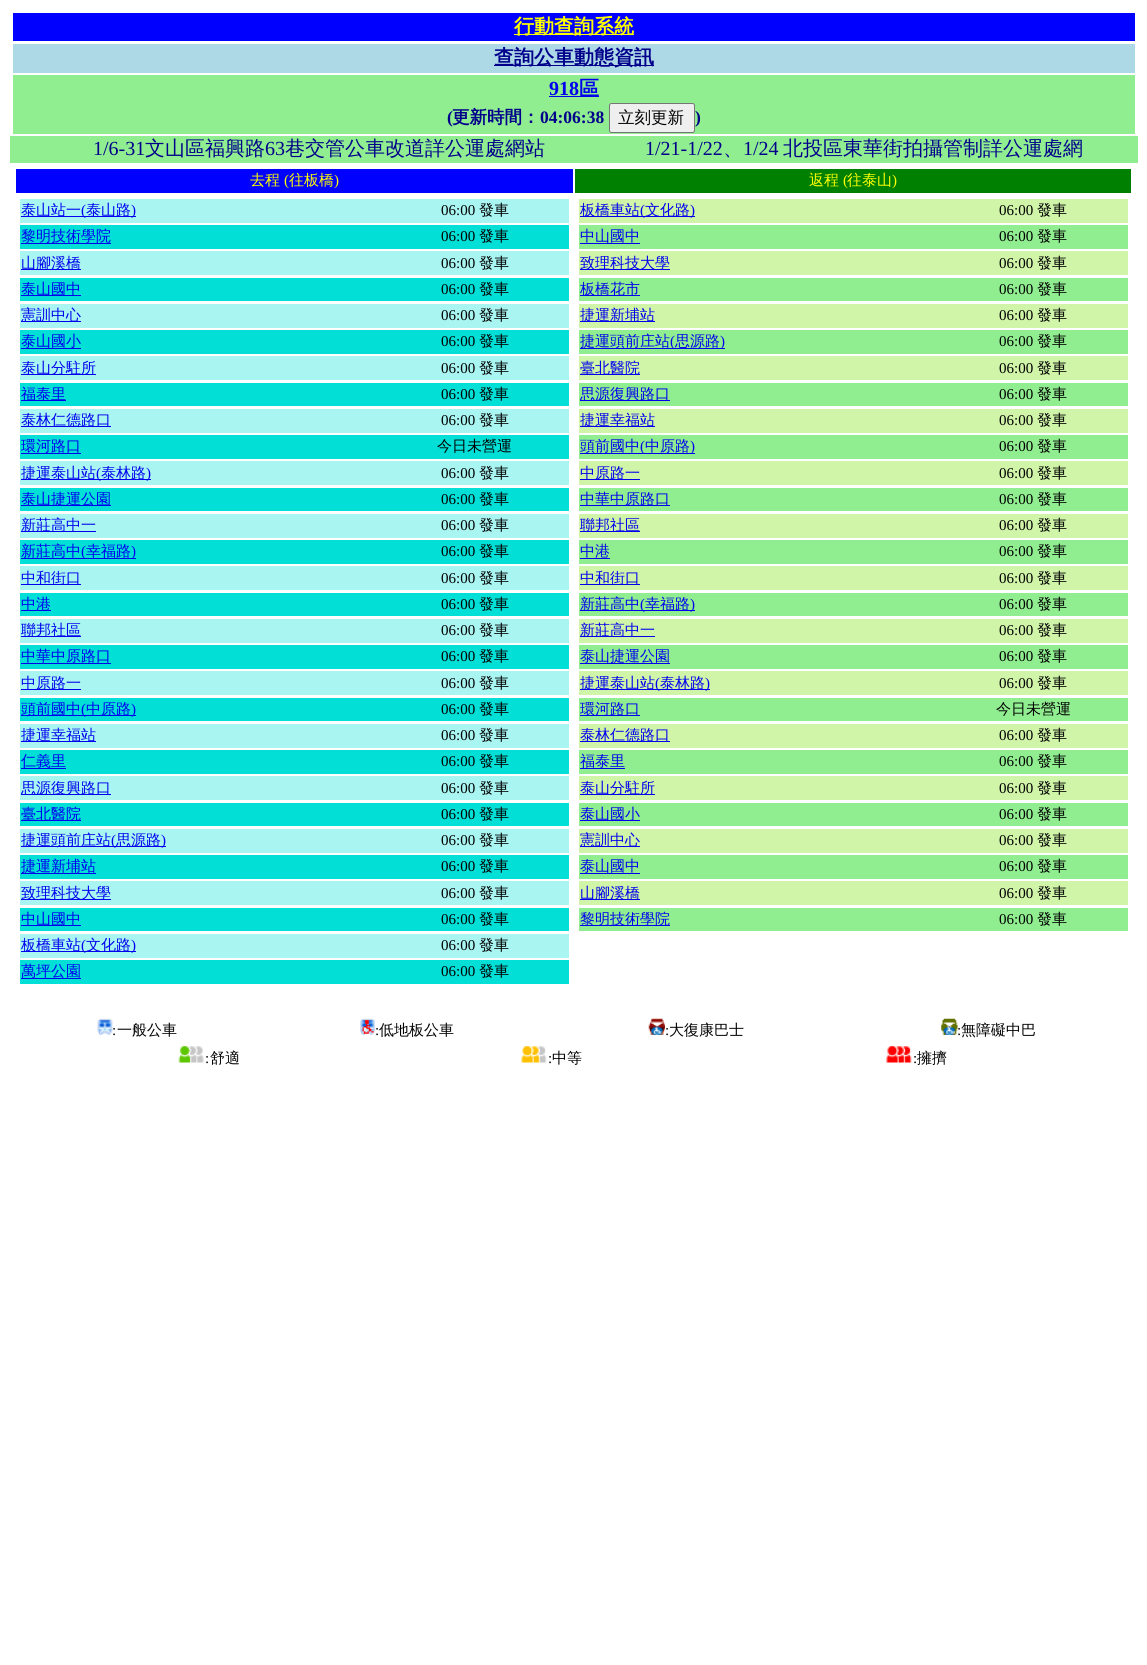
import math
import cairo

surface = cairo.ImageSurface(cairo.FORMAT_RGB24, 1147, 1665)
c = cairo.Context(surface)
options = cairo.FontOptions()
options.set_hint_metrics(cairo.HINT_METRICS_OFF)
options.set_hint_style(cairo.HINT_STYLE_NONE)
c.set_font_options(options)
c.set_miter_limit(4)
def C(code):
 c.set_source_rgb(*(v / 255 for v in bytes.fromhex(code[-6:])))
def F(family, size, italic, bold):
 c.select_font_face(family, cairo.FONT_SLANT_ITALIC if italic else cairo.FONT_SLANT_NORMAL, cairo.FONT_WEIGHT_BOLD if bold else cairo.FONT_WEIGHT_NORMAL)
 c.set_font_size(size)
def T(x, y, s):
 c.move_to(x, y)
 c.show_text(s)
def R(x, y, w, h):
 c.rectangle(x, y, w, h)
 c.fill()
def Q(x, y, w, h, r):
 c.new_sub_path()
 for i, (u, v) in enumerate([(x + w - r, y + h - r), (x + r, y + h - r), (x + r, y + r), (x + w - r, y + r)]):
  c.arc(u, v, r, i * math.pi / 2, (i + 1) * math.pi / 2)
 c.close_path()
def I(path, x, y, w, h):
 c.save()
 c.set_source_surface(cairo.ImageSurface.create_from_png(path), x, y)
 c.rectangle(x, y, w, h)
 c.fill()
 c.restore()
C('ffffff')
c.paint()
C('0000ff')
R(13,13,1122,28)
C('ffff00')
R(514,34,120,1)
F('WenQuanYi Zen Hei',20,0,1)
T(514,33,'行動查詢系統')
C('add8e6')
R(13,44,1122,29)
C('00008b')
R(494,65,160,1)
T(494,64,'查詢公車動態資訊')
C('90ee90')
R(13,75,1122,59)
F('Liberation Serif',20,0,1)
C('0000ee')
T(549,95,'918')
R(549,96,50,1)
F('WenQuanYi Zen Hei',20,0,1)
T(579,95,'區')
F('Liberation Serif',17.5,0,1)
C('00008b')
T(447,123,'(')
F('WenQuanYi Zen Hei',17.5,0,1)
T(452,123,'更新時間：')
F('Liberation Serif',17.5,0,1)
T(540,123,'04:06:38')
C('efefef')
Q(609.5,103.5,85,29,2)
c.fill_preserve()
C('767676')
c.set_line_width(1)
c.stroke()
F('WenQuanYi Zen Hei Medium',16.5,0,0)
C('000000')
T(618,123,'立刻更新')
F('Liberation Serif',17.5,0,1)
C('00008b')
T(695,123,')')
C('90ee90')
R(10,136,1128,27)
F('Liberation Serif',20,0,0)
C('00008b')
T(93,155,'1/6-31')
F('WenQuanYi Zen Hei Medium',20,0,0)
T(145,155,'文山區福興路')
F('Liberation Serif',20,0,0)
T(265,155,'63')
F('WenQuanYi Zen Hei Medium',20,0,0)
T(285,155,'巷交管公車改道詳公運處網站')
F('Liberation Serif',20,0,0)
T(645,155,'1/21-1/22')
F('WenQuanYi Zen Hei Medium',20,0,0)
T(723,155,'、')
F('Liberation Serif',20,0,0)
T(743,155,'1/24')
F('WenQuanYi Zen Hei Medium',20,0,0)
T(783,155,'北投區東華街拍攝管制詳公運處網')
C('0000ff')
R(16,169,557,24)
F('WenQuanYi Zen Hei Medium',15,0,0)
C('ffff00')
T(250,185,'去程')
F('Liberation Serif',15,0,0)
T(284,185,'(')
F('WenQuanYi Zen Hei Medium',15,0,0)
T(289,185,'往板橋')
F('Liberation Serif',15,0,0)
T(334,185,')')
C('008000')
R(575,169,556,24)
F('WenQuanYi Zen Hei Medium',15,0,0)
C('ffff00')
T(809,185,'返程')
F('Liberation Serif',15,0,0)
T(843,185,'(')
F('WenQuanYi Zen Hei Medium',15,0,0)
T(847,185,'往泰山')
F('Liberation Serif',15,0,0)
T(892,185,')')
C('a9f5f2')
R(20,199,549,24)
C('0000ee')
R(21,216,115,1)
F('WenQuanYi Zen Hei Medium',15,0,0)
T(21,215,'泰山站一')
F('Liberation Serif',15,0,0)
T(81,215,'(')
F('WenQuanYi Zen Hei Medium',15,0,0)
T(86,215,'泰山路')
F('Liberation Serif',15,0,0)
T(131,215,')')
C('000000')
T(441,215,'06:00')
F('WenQuanYi Zen Hei Medium',15,0,0)
T(479,215,'發車')
C('01dfd7')
R(20,225,549,24)
C('0000ee')
R(21,243,90,1)
T(21,241,'黎明技術學院')
F('Liberation Serif',15,0,0)
C('000000')
T(441,241,'06:00')
F('WenQuanYi Zen Hei Medium',15,0,0)
T(479,241,'發車')
C('a9f5f2')
R(20,251,549,24)
C('0000ee')
R(21,269,60,1)
T(21,268,'山腳溪橋')
F('Liberation Serif',15,0,0)
C('000000')
T(441,268,'06:00')
F('WenQuanYi Zen Hei Medium',15,0,0)
T(479,268,'發車')
C('01dfd7')
R(20,278,549,23)
C('0000ee')
R(21,295,60,1)
T(21,294,'泰山國中')
F('Liberation Serif',15,0,0)
C('000000')
T(441,294,'06:00')
F('WenQuanYi Zen Hei Medium',15,0,0)
T(479,294,'發車')
C('a9f5f2')
R(20,304,549,24)
C('0000ee')
R(21,321,60,1)
T(21,320,'憲訓中心')
F('Liberation Serif',15,0,0)
C('000000')
T(441,320,'06:00')
F('WenQuanYi Zen Hei Medium',15,0,0)
T(479,320,'發車')
C('01dfd7')
R(20,330,549,24)
C('0000ee')
T(21,346,'泰山國小')
R(21,348,60,1)
F('Liberation Serif',15,0,0)
C('000000')
T(441,346,'06:00')
F('WenQuanYi Zen Hei Medium',15,0,0)
T(479,346,'發車')
C('a9f5f2')
R(20,356,549,24)
C('0000ee')
R(21,374,75,1)
T(21,373,'泰山分駐所')
F('Liberation Serif',15,0,0)
C('000000')
T(441,373,'06:00')
F('WenQuanYi Zen Hei Medium',15,0,0)
T(479,373,'發車')
C('01dfd7')
R(20,383,549,23)
C('0000ee')
R(21,400,45,1)
T(21,399,'福泰里')
F('Liberation Serif',15,0,0)
C('000000')
T(441,399,'06:00')
F('WenQuanYi Zen Hei Medium',15,0,0)
T(479,399,'發車')
C('a9f5f2')
R(20,409,549,24)
C('0000ee')
R(21,426,90,1)
T(21,425,'泰林仁德路口')
F('Liberation Serif',15,0,0)
C('000000')
T(441,425,'06:00')
F('WenQuanYi Zen Hei Medium',15,0,0)
T(479,425,'發車')
C('01dfd7')
R(20,435,549,24)
C('0000ee')
T(21,451,'環河路口')
R(21,453,60,1)
C('000000')
T(437,451,'今日未營運')
C('a9f5f2')
R(20,461,549,24)
C('0000ee')
R(21,479,130,1)
T(21,478,'捷運泰山站')
F('Liberation Serif',15,0,0)
T(96,478,'(')
F('WenQuanYi Zen Hei Medium',15,0,0)
T(101,478,'泰林路')
F('Liberation Serif',15,0,0)
T(146,478,')')
C('000000')
T(441,478,'06:00')
F('WenQuanYi Zen Hei Medium',15,0,0)
T(479,478,'發車')
C('01dfd7')
R(20,488,549,23)
C('0000ee')
R(21,505,90,1)
T(21,504,'泰山捷運公園')
F('Liberation Serif',15,0,0)
C('000000')
T(441,504,'06:00')
F('WenQuanYi Zen Hei Medium',15,0,0)
T(479,504,'發車')
C('a9f5f2')
R(20,514,549,24)
C('0000ee')
R(21,531,75,1)
T(21,530,'新莊高中一')
F('Liberation Serif',15,0,0)
C('000000')
T(441,530,'06:00')
F('WenQuanYi Zen Hei Medium',15,0,0)
T(479,530,'發車')
C('01dfd7')
R(20,540,549,24)
C('0000ee')
T(21,556,'新莊高中')
R(21,558,115,1)
F('Liberation Serif',15,0,0)
T(81,556,'(')
F('WenQuanYi Zen Hei Medium',15,0,0)
T(86,556,'幸福路')
F('Liberation Serif',15,0,0)
T(131,556,')')
C('000000')
T(441,556,'06:00')
F('WenQuanYi Zen Hei Medium',15,0,0)
T(479,556,'發車')
C('a9f5f2')
R(20,566,549,24)
C('0000ee')
R(21,584,60,1)
T(21,583,'中和街口')
F('Liberation Serif',15,0,0)
C('000000')
T(441,583,'06:00')
F('WenQuanYi Zen Hei Medium',15,0,0)
T(479,583,'發車')
C('01dfd7')
R(20,593,549,23)
C('0000ee')
R(21,610,30,1)
T(21,609,'中港')
F('Liberation Serif',15,0,0)
C('000000')
T(441,609,'06:00')
F('WenQuanYi Zen Hei Medium',15,0,0)
T(479,609,'發車')
C('a9f5f2')
R(20,619,549,24)
C('0000ee')
R(21,636,60,1)
T(21,635,'聯邦社區')
F('Liberation Serif',15,0,0)
C('000000')
T(441,635,'06:00')
F('WenQuanYi Zen Hei Medium',15,0,0)
T(479,635,'發車')
C('01dfd7')
R(20,645,549,24)
C('0000ee')
T(21,661,'中華中原路口')
R(21,663,90,1)
F('Liberation Serif',15,0,0)
C('000000')
T(441,661,'06:00')
F('WenQuanYi Zen Hei Medium',15,0,0)
T(479,661,'發車')
C('a9f5f2')
R(20,671,549,24)
C('0000ee')
R(21,689,60,1)
T(21,688,'中原路一')
F('Liberation Serif',15,0,0)
C('000000')
T(441,688,'06:00')
F('WenQuanYi Zen Hei Medium',15,0,0)
T(479,688,'發車')
C('01dfd7')
R(20,698,549,23)
C('0000ee')
R(21,715,115,1)
T(21,714,'頭前國中')
F('Liberation Serif',15,0,0)
T(81,714,'(')
F('WenQuanYi Zen Hei Medium',15,0,0)
T(86,714,'中原路')
F('Liberation Serif',15,0,0)
T(131,714,')')
C('000000')
T(441,714,'06:00')
F('WenQuanYi Zen Hei Medium',15,0,0)
T(479,714,'發車')
C('a9f5f2')
R(20,724,549,24)
C('0000ee')
R(21,741,75,1)
T(21,740,'捷運幸福站')
F('Liberation Serif',15,0,0)
C('000000')
T(441,740,'06:00')
F('WenQuanYi Zen Hei Medium',15,0,0)
T(479,740,'發車')
C('01dfd7')
R(20,750,549,24)
C('0000ee')
T(21,766,'仁義里')
R(21,768,45,1)
F('Liberation Serif',15,0,0)
C('000000')
T(441,766,'06:00')
F('WenQuanYi Zen Hei Medium',15,0,0)
T(479,766,'發車')
C('a9f5f2')
R(20,776,549,24)
C('0000ee')
R(21,794,90,1)
T(21,793,'思源復興路口')
F('Liberation Serif',15,0,0)
C('000000')
T(441,793,'06:00')
F('WenQuanYi Zen Hei Medium',15,0,0)
T(479,793,'發車')
C('01dfd7')
R(20,803,549,23)
C('0000ee')
R(21,820,60,1)
T(21,819,'臺北醫院')
F('Liberation Serif',15,0,0)
C('000000')
T(441,819,'06:00')
F('WenQuanYi Zen Hei Medium',15,0,0)
T(479,819,'發車')
C('a9f5f2')
R(20,829,549,24)
C('0000ee')
R(21,846,145,1)
T(21,845,'捷運頭前庄站')
F('Liberation Serif',15,0,0)
T(111,845,'(')
F('WenQuanYi Zen Hei Medium',15,0,0)
T(116,845,'思源路')
F('Liberation Serif',15,0,0)
T(161,845,')')
C('000000')
T(441,845,'06:00')
F('WenQuanYi Zen Hei Medium',15,0,0)
T(479,845,'發車')
C('01dfd7')
R(20,855,549,24)
C('0000ee')
R(21,873,75,1)
T(21,871,'捷運新埔站')
F('Liberation Serif',15,0,0)
C('000000')
T(441,871,'06:00')
F('WenQuanYi Zen Hei Medium',15,0,0)
T(479,871,'發車')
C('a9f5f2')
R(20,881,549,24)
C('0000ee')
R(21,899,90,1)
T(21,898,'致理科技大學')
F('Liberation Serif',15,0,0)
C('000000')
T(441,898,'06:00')
F('WenQuanYi Zen Hei Medium',15,0,0)
T(479,898,'發車')
C('01dfd7')
R(20,908,549,23)
C('0000ee')
R(21,925,60,1)
T(21,924,'中山國中')
F('Liberation Serif',15,0,0)
C('000000')
T(441,924,'06:00')
F('WenQuanYi Zen Hei Medium',15,0,0)
T(479,924,'發車')
C('a9f5f2')
R(20,934,549,24)
C('0000ee')
R(21,951,115,1)
T(21,950,'板橋車站')
F('Liberation Serif',15,0,0)
T(81,950,'(')
F('WenQuanYi Zen Hei Medium',15,0,0)
T(86,950,'文化路')
F('Liberation Serif',15,0,0)
T(131,950,')')
C('000000')
T(441,950,'06:00')
F('WenQuanYi Zen Hei Medium',15,0,0)
T(479,950,'發車')
C('01dfd7')
R(20,960,549,24)
C('0000ee')
R(21,978,60,1)
T(21,976,'萬坪公園')
F('Liberation Serif',15,0,0)
C('000000')
T(441,976,'06:00')
F('WenQuanYi Zen Hei Medium',15,0,0)
T(479,976,'發車')
C('d0f5a9')
R(579,199,549,24)
C('0000ee')
R(580,216,115,1)
T(580,215,'板橋車站')
F('Liberation Serif',15,0,0)
T(640,215,'(')
F('WenQuanYi Zen Hei Medium',15,0,0)
T(645,215,'文化路')
F('Liberation Serif',15,0,0)
T(690,215,')')
C('000000')
T(999,215,'06:00')
F('WenQuanYi Zen Hei Medium',15,0,0)
T(1037,215,'發車')
C('90ee90')
R(579,225,549,24)
C('0000ee')
T(580,241,'中山國中')
R(580,243,60,1)
F('Liberation Serif',15,0,0)
C('000000')
T(999,241,'06:00')
F('WenQuanYi Zen Hei Medium',15,0,0)
T(1037,241,'發車')
C('d0f5a9')
R(579,251,549,24)
C('0000ee')
R(580,269,90,1)
T(580,268,'致理科技大學')
F('Liberation Serif',15,0,0)
C('000000')
T(999,268,'06:00')
F('WenQuanYi Zen Hei Medium',15,0,0)
T(1037,268,'發車')
C('90ee90')
R(579,278,549,23)
C('0000ee')
R(580,295,60,1)
T(580,294,'板橋花市')
F('Liberation Serif',15,0,0)
C('000000')
T(999,294,'06:00')
F('WenQuanYi Zen Hei Medium',15,0,0)
T(1037,294,'發車')
C('d0f5a9')
R(579,304,549,24)
C('0000ee')
R(580,321,75,1)
T(580,320,'捷運新埔站')
F('Liberation Serif',15,0,0)
C('000000')
T(999,320,'06:00')
F('WenQuanYi Zen Hei Medium',15,0,0)
T(1037,320,'發車')
C('90ee90')
R(579,330,549,24)
C('0000ee')
R(580,348,145,1)
T(580,346,'捷運頭前庄站')
F('Liberation Serif',15,0,0)
T(670,346,'(')
F('WenQuanYi Zen Hei Medium',15,0,0)
T(675,346,'思源路')
F('Liberation Serif',15,0,0)
T(720,346,')')
C('000000')
T(999,346,'06:00')
F('WenQuanYi Zen Hei Medium',15,0,0)
T(1037,346,'發車')
C('d0f5a9')
R(579,356,549,24)
C('0000ee')
R(580,374,60,1)
T(580,373,'臺北醫院')
F('Liberation Serif',15,0,0)
C('000000')
T(999,373,'06:00')
F('WenQuanYi Zen Hei Medium',15,0,0)
T(1037,373,'發車')
C('90ee90')
R(579,383,549,23)
C('0000ee')
R(580,400,90,1)
T(580,399,'思源復興路口')
F('Liberation Serif',15,0,0)
C('000000')
T(999,399,'06:00')
F('WenQuanYi Zen Hei Medium',15,0,0)
T(1037,399,'發車')
C('d0f5a9')
R(579,409,549,24)
C('0000ee')
R(580,426,75,1)
T(580,425,'捷運幸福站')
F('Liberation Serif',15,0,0)
C('000000')
T(999,425,'06:00')
F('WenQuanYi Zen Hei Medium',15,0,0)
T(1037,425,'發車')
C('90ee90')
R(579,435,549,24)
C('0000ee')
R(580,453,115,1)
T(580,451,'頭前國中')
F('Liberation Serif',15,0,0)
T(640,451,'(')
F('WenQuanYi Zen Hei Medium',15,0,0)
T(645,451,'中原路')
F('Liberation Serif',15,0,0)
T(690,451,')')
C('000000')
T(999,451,'06:00')
F('WenQuanYi Zen Hei Medium',15,0,0)
T(1037,451,'發車')
C('d0f5a9')
R(579,461,549,24)
C('0000ee')
R(580,479,60,1)
T(580,478,'中原路一')
F('Liberation Serif',15,0,0)
C('000000')
T(999,478,'06:00')
F('WenQuanYi Zen Hei Medium',15,0,0)
T(1037,478,'發車')
C('90ee90')
R(579,488,549,23)
C('0000ee')
R(580,505,90,1)
T(580,504,'中華中原路口')
F('Liberation Serif',15,0,0)
C('000000')
T(999,504,'06:00')
F('WenQuanYi Zen Hei Medium',15,0,0)
T(1037,504,'發車')
C('d0f5a9')
R(579,514,549,24)
C('0000ee')
R(580,531,60,1)
T(580,530,'聯邦社區')
F('Liberation Serif',15,0,0)
C('000000')
T(999,530,'06:00')
F('WenQuanYi Zen Hei Medium',15,0,0)
T(1037,530,'發車')
C('90ee90')
R(579,540,549,24)
C('0000ee')
T(580,556,'中港')
R(580,558,30,1)
F('Liberation Serif',15,0,0)
C('000000')
T(999,556,'06:00')
F('WenQuanYi Zen Hei Medium',15,0,0)
T(1037,556,'發車')
C('d0f5a9')
R(579,566,549,24)
C('0000ee')
R(580,584,60,1)
T(580,583,'中和街口')
F('Liberation Serif',15,0,0)
C('000000')
T(999,583,'06:00')
F('WenQuanYi Zen Hei Medium',15,0,0)
T(1037,583,'發車')
C('90ee90')
R(579,593,549,23)
C('0000ee')
R(580,610,115,1)
T(580,609,'新莊高中')
F('Liberation Serif',15,0,0)
T(640,609,'(')
F('WenQuanYi Zen Hei Medium',15,0,0)
T(645,609,'幸福路')
F('Liberation Serif',15,0,0)
T(690,609,')')
C('000000')
T(999,609,'06:00')
F('WenQuanYi Zen Hei Medium',15,0,0)
T(1037,609,'發車')
C('d0f5a9')
R(579,619,549,24)
C('0000ee')
R(580,636,75,1)
T(580,635,'新莊高中一')
F('Liberation Serif',15,0,0)
C('000000')
T(999,635,'06:00')
F('WenQuanYi Zen Hei Medium',15,0,0)
T(1037,635,'發車')
C('90ee90')
R(579,645,549,24)
C('0000ee')
R(580,663,90,1)
T(580,661,'泰山捷運公園')
F('Liberation Serif',15,0,0)
C('000000')
T(999,661,'06:00')
F('WenQuanYi Zen Hei Medium',15,0,0)
T(1037,661,'發車')
C('d0f5a9')
R(579,671,549,24)
C('0000ee')
R(580,689,130,1)
T(580,688,'捷運泰山站')
F('Liberation Serif',15,0,0)
T(655,688,'(')
F('WenQuanYi Zen Hei Medium',15,0,0)
T(660,688,'泰林路')
F('Liberation Serif',15,0,0)
T(705,688,')')
C('000000')
T(999,688,'06:00')
F('WenQuanYi Zen Hei Medium',15,0,0)
T(1037,688,'發車')
C('90ee90')
R(579,698,549,23)
C('0000ee')
R(580,715,60,1)
T(580,714,'環河路口')
C('000000')
T(996,714,'今日未營運')
C('d0f5a9')
R(579,724,549,24)
C('0000ee')
R(580,741,90,1)
T(580,740,'泰林仁德路口')
F('Liberation Serif',15,0,0)
C('000000')
T(999,740,'06:00')
F('WenQuanYi Zen Hei Medium',15,0,0)
T(1037,740,'發車')
C('90ee90')
R(579,750,549,24)
C('0000ee')
T(580,766,'福泰里')
R(580,768,45,1)
F('Liberation Serif',15,0,0)
C('000000')
T(999,766,'06:00')
F('WenQuanYi Zen Hei Medium',15,0,0)
T(1037,766,'發車')
C('d0f5a9')
R(579,776,549,24)
C('0000ee')
R(580,794,75,1)
T(580,793,'泰山分駐所')
F('Liberation Serif',15,0,0)
C('000000')
T(999,793,'06:00')
F('WenQuanYi Zen Hei Medium',15,0,0)
T(1037,793,'發車')
C('90ee90')
R(579,803,549,23)
C('0000ee')
R(580,820,60,1)
T(580,819,'泰山國小')
F('Liberation Serif',15,0,0)
C('000000')
T(999,819,'06:00')
F('WenQuanYi Zen Hei Medium',15,0,0)
T(1037,819,'發車')
C('d0f5a9')
R(579,829,549,24)
C('0000ee')
R(580,846,60,1)
T(580,845,'憲訓中心')
F('Liberation Serif',15,0,0)
C('000000')
T(999,845,'06:00')
F('WenQuanYi Zen Hei Medium',15,0,0)
T(1037,845,'發車')
C('90ee90')
R(579,855,549,24)
C('0000ee')
T(580,871,'泰山國中')
R(580,873,60,1)
F('Liberation Serif',15,0,0)
C('000000')
T(999,871,'06:00')
F('WenQuanYi Zen Hei Medium',15,0,0)
T(1037,871,'發車')
C('d0f5a9')
R(579,881,549,24)
C('0000ee')
R(580,899,60,1)
T(580,898,'山腳溪橋')
F('Liberation Serif',15,0,0)
C('000000')
T(999,898,'06:00')
F('WenQuanYi Zen Hei Medium',15,0,0)
T(1037,898,'發車')
C('90ee90')
R(579,908,549,23)
C('0000ee')
R(580,925,90,1)
T(580,924,'黎明技術學院')
F('Liberation Serif',15,0,0)
C('000000')
T(999,924,'06:00')
F('WenQuanYi Zen Hei Medium',15,0,0)
T(1037,924,'發車')
I('1.png',97,1018,16,17)
F('Liberation Serif',15,0,0)
T(112,1035,':')
F('WenQuanYi Zen Hei Medium',15,0,0)
T(117,1035,'一般公車')
I('2.png',360,1018,15,17)
F('Liberation Serif',15,0,0)
T(375,1035,':')
F('WenQuanYi Zen Hei Medium',15,0,0)
T(379,1035,'低地板公車')
I('3.png',648,1018,17,17)
F('Liberation Serif',15,0,0)
T(665,1035,':')
F('WenQuanYi Zen Hei Medium',15,0,0)
T(669,1035,'大復康巴士')
I('4.png',941,1018,17,17)
F('Liberation Serif',15,0,0)
T(957,1035,':')
F('WenQuanYi Zen Hei Medium',15,0,0)
T(961,1035,'無障礙中巴')
I('5.png',178,1046,26,17)
F('Liberation Serif',15,0,0)
T(205,1063,':')
F('WenQuanYi Zen Hei Medium',15,0,0)
T(210,1063,'舒適')
I('6.png',521,1046,26,17)
F('Liberation Serif',15,0,0)
T(548,1063,':')
F('WenQuanYi Zen Hei Medium',15,0,0)
T(552,1063,'中等')
I('7.png',886,1046,26,17)
F('Liberation Serif',15,0,0)
T(913,1063,':')
F('WenQuanYi Zen Hei Medium',15,0,0)
T(917,1063,'擁擠')
surface.write_to_png('o.png')
